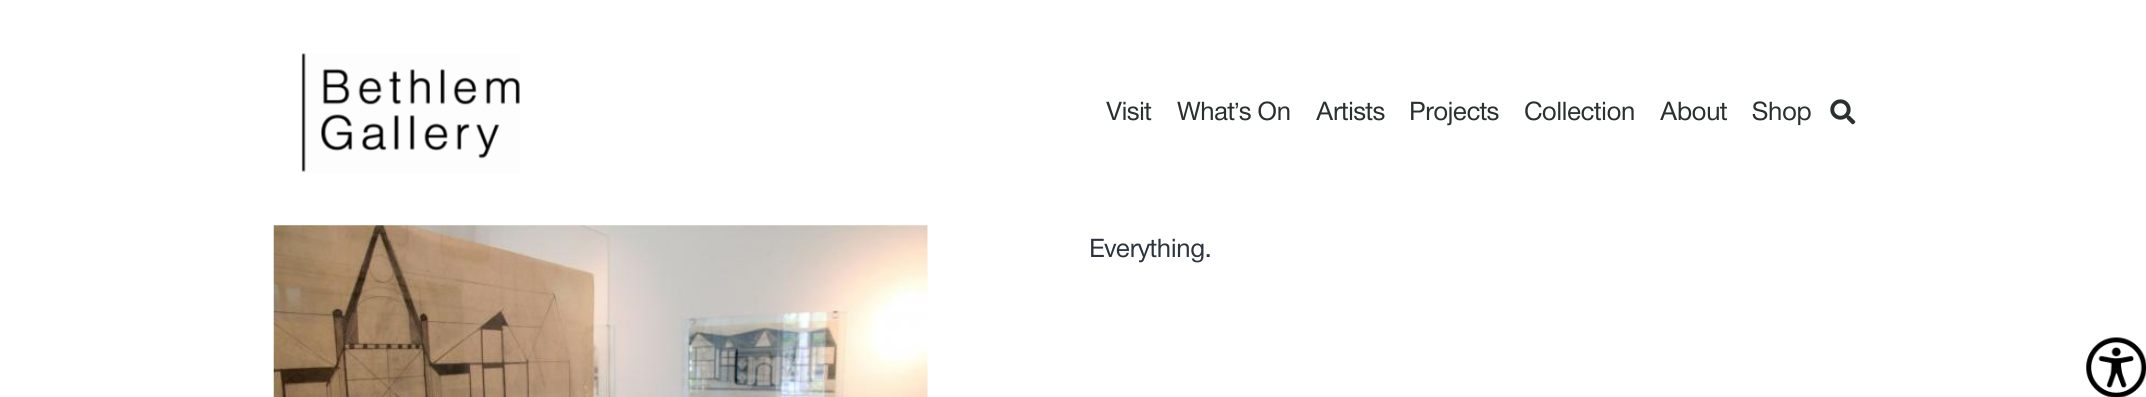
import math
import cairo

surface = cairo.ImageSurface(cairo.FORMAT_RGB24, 2146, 397)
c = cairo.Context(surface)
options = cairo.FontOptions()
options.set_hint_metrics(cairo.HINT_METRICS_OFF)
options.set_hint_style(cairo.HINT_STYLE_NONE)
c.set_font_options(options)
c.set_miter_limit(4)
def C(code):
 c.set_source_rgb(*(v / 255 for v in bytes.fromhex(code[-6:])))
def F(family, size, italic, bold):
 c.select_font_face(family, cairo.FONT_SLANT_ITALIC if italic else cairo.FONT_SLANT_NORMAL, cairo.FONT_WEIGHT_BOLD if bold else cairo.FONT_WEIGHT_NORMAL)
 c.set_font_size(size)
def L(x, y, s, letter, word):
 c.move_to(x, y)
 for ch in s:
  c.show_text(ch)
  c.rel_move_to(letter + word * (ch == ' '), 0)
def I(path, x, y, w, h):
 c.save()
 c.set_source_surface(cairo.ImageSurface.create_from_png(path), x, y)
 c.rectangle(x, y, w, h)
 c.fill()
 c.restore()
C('ffffff')
c.paint()
I('1.png',301,53,219,120)
F('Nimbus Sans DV',25,0,0)
C('2a302f')
L(1106,120,'Visit',-.6,0)
L(1177,120,'What',-.6,0)
F('Liberation Sans',25,0,0)
L(1234,120,'’',-.6,0)
F('Nimbus Sans DV',25,0,0)
L(1239,120,'s On',-.6,0)
L(1316,120,'Artists',-.6,0)
L(1409,120,'Projects',-.6,0)
L(1524,120,'Collection',-.6,0)
L(1660,120,'About',-.6,0)
L(1752,120,'Shop',-.6,0)
I('2.png',1830,99,26,26)
I('3.png',273,225,655,172)
C('2b343f')
L(1089,257,'Everything.',-.6,0)
I('4.png',2086,337,60,60)
surface.write_to_png('o.png')
